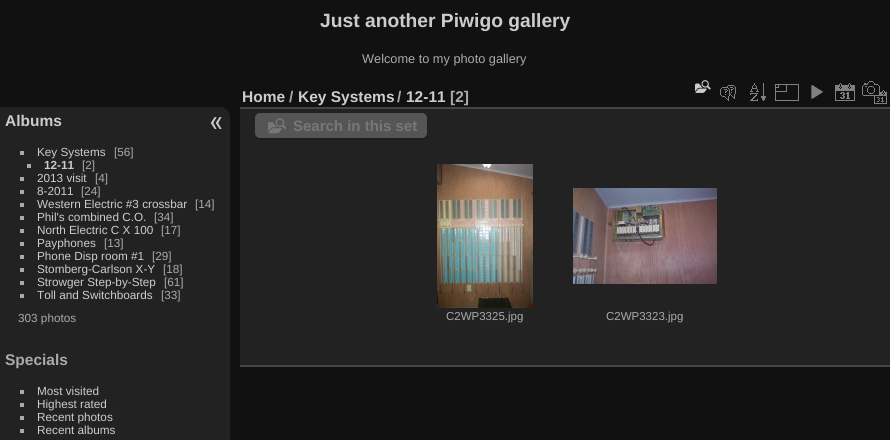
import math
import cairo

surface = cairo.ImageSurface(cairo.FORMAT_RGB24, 890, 440)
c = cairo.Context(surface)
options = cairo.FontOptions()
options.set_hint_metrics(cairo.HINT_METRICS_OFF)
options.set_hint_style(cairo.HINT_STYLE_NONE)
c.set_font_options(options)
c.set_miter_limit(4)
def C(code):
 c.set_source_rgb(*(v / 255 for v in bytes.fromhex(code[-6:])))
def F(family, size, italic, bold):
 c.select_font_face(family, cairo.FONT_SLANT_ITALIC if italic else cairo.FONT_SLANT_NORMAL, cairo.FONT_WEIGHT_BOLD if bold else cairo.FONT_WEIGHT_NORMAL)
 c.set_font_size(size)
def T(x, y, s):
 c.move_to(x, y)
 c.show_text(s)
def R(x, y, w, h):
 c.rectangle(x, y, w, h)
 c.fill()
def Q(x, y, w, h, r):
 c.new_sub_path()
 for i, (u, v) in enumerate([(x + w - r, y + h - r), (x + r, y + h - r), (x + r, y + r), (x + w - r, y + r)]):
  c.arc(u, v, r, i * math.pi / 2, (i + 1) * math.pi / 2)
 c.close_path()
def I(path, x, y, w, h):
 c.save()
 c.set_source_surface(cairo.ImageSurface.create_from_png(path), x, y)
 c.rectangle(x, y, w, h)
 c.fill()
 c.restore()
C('111111')
c.paint()
F('Liberation Sans',19.25,0,1)
C('cccccc')
T(320,27,'Just another Piwigo gallery')
F('Liberation Sans',12.75,0,0)
C('aaaaaa')
T(362,63,'Welcome to my photo gallery')
C('222222')
c.new_path()
c.move_to(0,107)
c.line_to(220,107)
c.curve_to(225.5,107,230,111.5,230,117)
c.line_to(230,440)
c.curve_to(230,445.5,225.5,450,220,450)
c.line_to(0,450)
c.close_path()
c.fill()
F('Liberation Sans',15.5,0,1)
C('cccccc')
T(5,126,'Albums')
C('aaaaaa')
R(20,151,4,4)
F('Liberation Sans',11.75,0,0)
C('cccccc')
T(37,156,'Key Systems')
C('aaaaaa')
T(114,156,'[56]')
R(27,164,4,4)
F('Liberation Sans',11.75,0,1)
C('cccccc')
T(44,169,'12-11')
F('Liberation Sans',11.75,0,0)
C('aaaaaa')
T(82,169,'[2]')
R(20,177,4,4)
C('cccccc')
T(37,182,'2013 visit')
C('aaaaaa')
T(95,182,'[4]')
R(20,190,4,4)
C('cccccc')
T(37,195,'8-2011')
C('aaaaaa')
T(81,195,'[24]')
R(20,203,4,4)
C('cccccc')
T(37,208,'Western Electric #3 crossbar')
C('aaaaaa')
T(195,208,'[14]')
R(20,216,4,4)
C('cccccc')
T(37,221,'Phil\'s combined C.O.')
C('aaaaaa')
T(154,221,'[34]')
R(20,229,4,4)
C('cccccc')
T(37,234,'North Electric C X 100')
C('aaaaaa')
T(161,234,'[17]')
R(20,242,4,4)
C('cccccc')
T(37,247,'Payphones')
C('aaaaaa')
T(104,247,'[13]')
R(20,255,4,4)
C('cccccc')
T(37,260,'Phone Disp room #1')
C('aaaaaa')
T(152,260,'[29]')
R(20,268,4,4)
C('cccccc')
T(37,273,'Stomberg-Carlson X-Y')
C('aaaaaa')
T(163,273,'[18]')
R(20,281,4,4)
C('cccccc')
T(37,286,'Strowger Step-by-Step')
C('aaaaaa')
T(164,286,'[61]')
R(20,294,4,4)
C('cccccc')
T(37,299,'Toll and Switchboards')
C('aaaaaa')
T(161,299,'[33]')
T(18,322,'303 photos')
F('Liberation Sans',15.5,0,1)
T(5,365,'Specials')
R(20,390,4,4)
F('Liberation Sans',11.75,0,0)
C('cccccc')
T(37,395,'Most visited')
C('aaaaaa')
R(20,403,4,4)
C('cccccc')
T(37,408,'Highest rated')
C('aaaaaa')
R(20,416,4,4)
C('cccccc')
T(37,421,'Recent photos')
C('aaaaaa')
R(20,429,4,4)
C('cccccc')
T(37,434,'Recent albums')
I('1.png',210,117,12,12)
C('222222')
R(240,109,650,256)
C('444444')
R(240,365,650,2)
R(240,107,650,2)
F('Liberation Sans',15.5,0,1)
C('cccccc')
T(242,102,'Home')
C('aaaaaa')
T(289,102,'/')
C('cccccc')
T(298,102,'Key Systems')
C('aaaaaa')
T(397,102,'/')
C('cccccc')
T(406,102,'12-11')
C('aaaaaa')
T(450,102,'[2]')
I('2.png',695,80,16,13)
I('3.png',720,85,16,16)
I('4.png',750,83,16,18)
I('5.png',775,84,24,17)
I('6.png',811,85,12,14)
I('7.png',835,83,20,18)
I('8.png',862,81,25,23)
C('1d1d1d')
c.new_path()
c.move_to(255,133)
c.line_to(255,135)
c.curve_to(255,138,257,140,260,140)
c.line_to(422,140)
c.curve_to(425,140,427,138,427,135)
c.line_to(427,133)
c.curve_to(427,136,425,138,422,138)
c.line_to(260,138)
c.curve_to(257,138,255,136,255,133)
c.close_path()
c.fill()
C('555555')
Q(255,113,172,25,5)
c.fill()
I('9.png',268,118,19,16)
F('Liberation Sans',15,0,1)
C('777777')
T(293,131,'Search in this set')
I('10.png',437,164,96,144)
F('Liberation Sans',11.5,0,0)
C('aaaaaa')
T(446,320,'C2WP3325.jpg')
I('11.png',573,188,144,96)
T(606,320,'C2WP3323.jpg')
surface.write_to_png('o.png')
